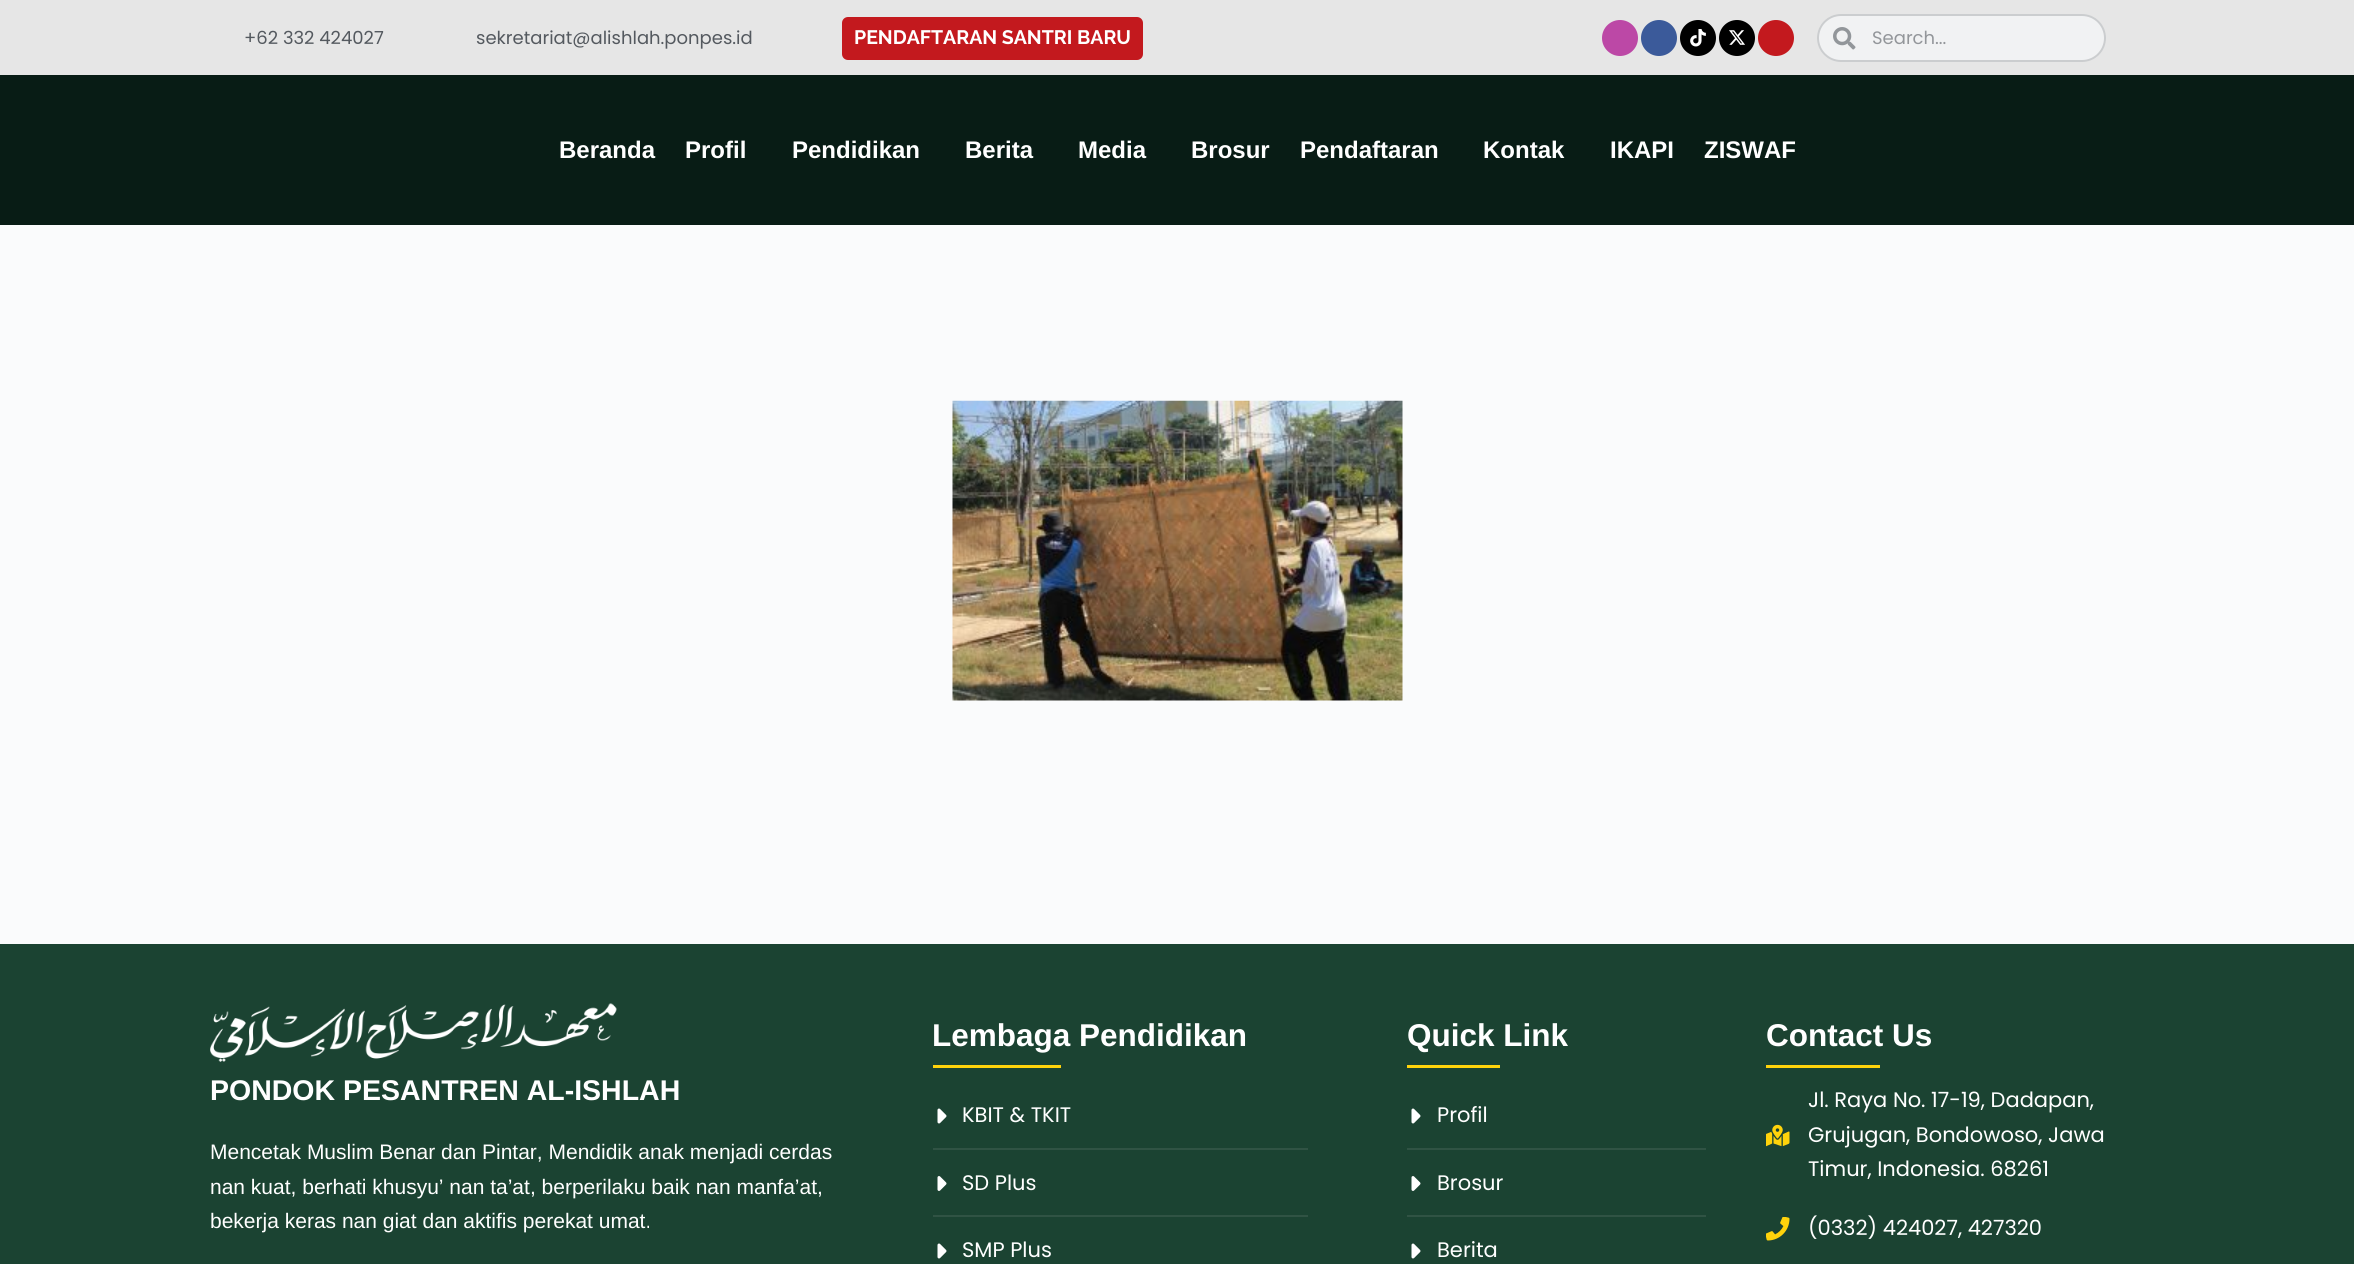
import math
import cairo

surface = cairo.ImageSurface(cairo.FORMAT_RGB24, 2354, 1264)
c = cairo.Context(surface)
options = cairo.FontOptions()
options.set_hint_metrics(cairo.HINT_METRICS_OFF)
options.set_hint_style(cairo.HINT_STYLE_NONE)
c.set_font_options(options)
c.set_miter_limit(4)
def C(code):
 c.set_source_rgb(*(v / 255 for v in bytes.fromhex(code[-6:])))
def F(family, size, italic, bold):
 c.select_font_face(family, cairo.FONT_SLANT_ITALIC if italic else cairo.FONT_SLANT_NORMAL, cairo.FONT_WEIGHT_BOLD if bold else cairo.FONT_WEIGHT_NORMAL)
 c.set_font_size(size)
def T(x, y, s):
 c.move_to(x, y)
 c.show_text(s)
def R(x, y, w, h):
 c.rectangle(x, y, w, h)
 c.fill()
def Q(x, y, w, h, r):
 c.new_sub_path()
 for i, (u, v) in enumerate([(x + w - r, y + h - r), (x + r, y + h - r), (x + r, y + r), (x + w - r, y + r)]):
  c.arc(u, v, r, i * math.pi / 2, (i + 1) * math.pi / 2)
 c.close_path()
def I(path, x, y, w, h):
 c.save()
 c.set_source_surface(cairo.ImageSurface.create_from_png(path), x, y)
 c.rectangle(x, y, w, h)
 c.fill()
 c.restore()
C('fafbfc')
c.paint()
C('e6e6e6')
R(0,0,2354,75)
F('Poppins',18,0,0)
C('54595f')
T(244,44,'+62 332 424027')
T(476,44,'sekretariat@alishlah.ponpes.id')
C('c3191e')
Q(842,17,301,43,6)
c.fill()
F('Raleway',19.5,0,1)
C('ffffff')
T(854,44,'PENDAFTARAN SANTRI BARU')
C('bc48a6')
c.new_path()
c.arc(1620,38,18,0,2 * math.pi)
c.fill()
C('3b5a9a')
c.arc(1659,38,18,0,2 * math.pi)
c.fill()
C('000000')
c.arc(1698,38,18,0,2 * math.pi)
c.fill()
I('1.png',1690,29,16,18)
c.arc(1737,38,18,0,2 * math.pi)
c.fill()
I('2.png',1729,30,16,15)
C('c3191e')
c.arc(1776,38,18,0,2 * math.pi)
c.fill()
C('f1f2f3')
Q(1817,14,289,48,24)
c.fill()
Q(1818,15,287,46,23)
c.set_source_rgba(0.329,0.349,0.373,0.24)
c.stroke()
I('3.png',1833,27,23,23)
F('Poppins',18,0,0)
C('93969a')
T(1872,44,'Search...')
C('081c15')
R(0,75,2354,150)
F('Liberation Sans',24,0,1)
C('ffffff')
T(559,158,'Beranda')
T(685,158,'Profil')
T(792,158,'Pendidikan')
T(965,158,'Berita')
T(1078,158,'Media')
T(1191,158,'Brosur')
T(1300,158,'Pendaftaran')
T(1483,158,'Kontak')
T(1610,158,'IKAPI')
T(1704,158,'ZISWAF')
I('4.png',952,400,451,301)
C('1b4332')
R(0,944,2354,320)
I('5.png',210,1003,407,59)
F('Liberation Sans',28.5,0,1)
C('ffffff')
T(210,1100,'PONDOK PESANTREN AL-ISHLAH')
F('Liberation Sans',21,0,0)
T(210,1159,'Mencetak Muslim Benar dan Pintar, Mendidik anak menjadi cerdas')
T(210,1194,'nan kuat, berhati khusyu’ nan ta’at, berperilaku baik nan manfa’at,')
T(210,1228,'bekerja keras nan giat dan aktifis perekat umat.')
F('Liberation Sans',31.5,0,1)
T(932,1046,'Lembaga Pendidikan')
C('ffd30b')
R(933,1065,128,3)
C('305344')
R(933,1148,375,2)
I('6.png',937,1108,10,16)
F('Poppins',21,0,0)
C('ffffff')
T(962,1122,'KBIT & TKIT')
C('305344')
R(933,1215,375,2)
I('7.png',937,1176,10,15)
C('ffffff')
T(962,1190,'SD Plus')
I('6.png',937,1243,10,16)
T(962,1257,'SMP Plus')
F('Liberation Sans',31.5,0,1)
T(1407,1046,'Quick Link')
C('ffd30b')
R(1407,1065,93,3)
C('305344')
R(1407,1148,299,2)
I('6.png',1411,1108,10,16)
F('Poppins',21,0,0)
C('ffffff')
T(1437,1122,'Profil')
C('305344')
R(1407,1215,299,2)
I('7.png',1411,1176,10,15)
C('ffffff')
T(1437,1190,'Brosur')
I('6.png',1411,1243,10,16)
T(1437,1257,'Berita')
F('Liberation Sans',31.5,0,1)
T(1766,1046,'Contact Us')
C('ffd30b')
R(1766,1065,114,3)
I('8.png',1766,1124,24,23)
F('Poppins',21,0,0)
C('ffffff')
T(1808,1107,'Jl. Raya No. 17-19, Dadapan,')
T(1808,1142,'Grujugan, Bondowoso, Jawa')
T(1808,1176,'Timur, Indonesia. 68261')
I('9.png',1766,1217,24,24)
T(1808,1235,'(0332) 424027, 427320')
surface.write_to_png('o.png')
